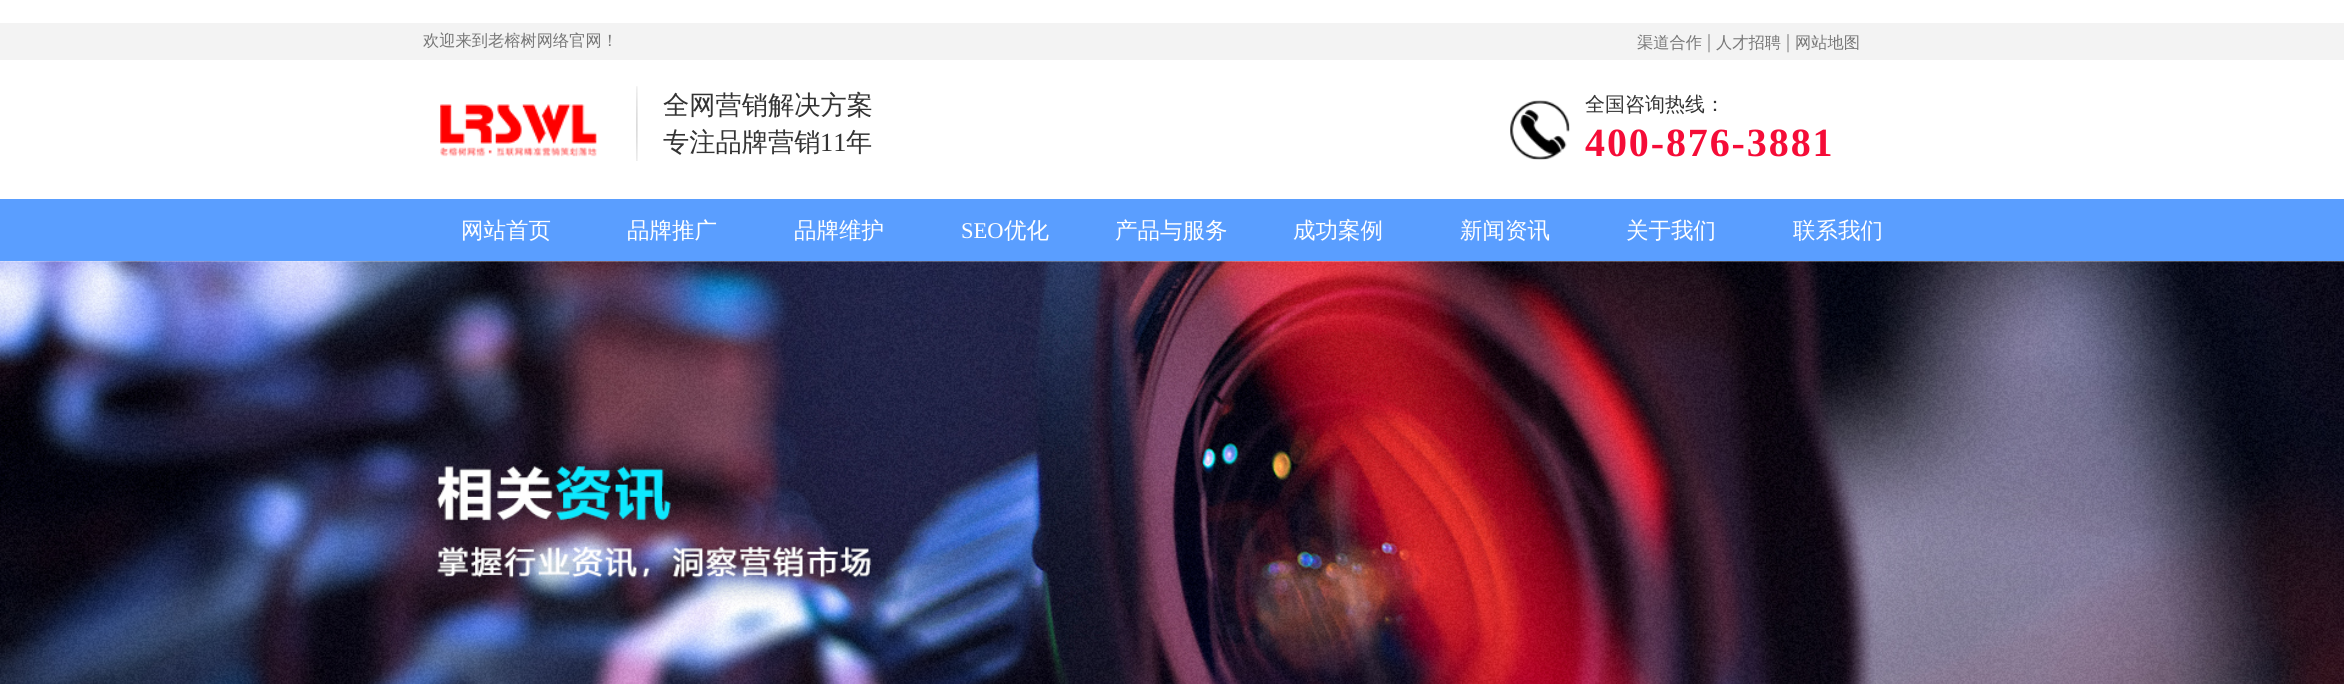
import math
import cairo

surface = cairo.ImageSurface(cairo.FORMAT_RGB24, 2344, 684)
c = cairo.Context(surface)
options = cairo.FontOptions()
options.set_hint_metrics(cairo.HINT_METRICS_OFF)
options.set_hint_style(cairo.HINT_STYLE_NONE)
c.set_font_options(options)
c.set_miter_limit(4)
def C(code):
 c.set_source_rgb(*(v / 255 for v in bytes.fromhex(code[-6:])))
def F(family, size, italic, bold):
 c.select_font_face(family, cairo.FONT_SLANT_ITALIC if italic else cairo.FONT_SLANT_NORMAL, cairo.FONT_WEIGHT_BOLD if bold else cairo.FONT_WEIGHT_NORMAL)
 c.set_font_size(size)
def T(x, y, s):
 c.move_to(x, y)
 c.show_text(s)
def L(x, y, s, letter, word):
 c.move_to(x, y)
 for ch in s:
  c.show_text(ch)
  c.rel_move_to(letter + word * (ch == ' '), 0)
def R(x, y, w, h):
 c.rectangle(x, y, w, h)
 c.fill()
def I(path, x, y, w, h):
 c.save()
 c.set_source_surface(cairo.ImageSurface.create_from_png(path), x, y)
 c.rectangle(x, y, w, h)
 c.fill()
 c.restore()
C('ffffff')
c.paint()
C('f3f3f3')
R(0,23,2344,37)
F('WenQuanYi Zen Hei Medium',16.25,0,0)
C('777777')
T(423,46,'欢迎来到老榕树网络官网！')
T(1637,48,'渠道合作')
F('Liberation Serif',20,0,0)
T(1707,48,'|')
F('WenQuanYi Zen Hei Medium',16.25,0,0)
T(1716,48,'人才招聘')
F('Liberation Serif',20,0,0)
T(1786,48,'|')
F('WenQuanYi Zen Hei Medium',16.25,0,0)
T(1795,48,'网站地图')
I('1.png',636,86,2,75)
I('2.png',440,104,157,53)
F('WenQuanYi Zen Hei Medium',26.25,0,0)
C('333333')
T(663,114,'全网营销解决方案')
T(663,151,'专注品牌营销')
F('Liberation Serif',26.25,0,0)
T(820,151,'11')
F('WenQuanYi Zen Hei Medium',26.25,0,0)
T(846,151,'年')
I('3.png',1510,100,60,60)
F('WenQuanYi Zen Hei Medium',20,0,0)
T(1585,111,'全国咨询热线：')
F('Liberation Serif',40,0,1)
C('f50c37')
L(1585,156,'400-876-3881',1.9,0)
C('5a9eff')
R(0,199,2344,62)
F('WenQuanYi Zen Hei Medium',22.5,0,0)
C('ffffff')
T(461,238,'网站首页')
T(627,238,'品牌推广')
T(794,238,'品牌维护')
F('Liberation Serif',22.5,0,0)
T(961,238,'SEO')
F('WenQuanYi Zen Hei Medium',22.5,0,0)
T(1004,238,'优化')
T(1115,238,'产品与服务')
T(1293,238,'成功案例')
T(1460,238,'新闻资讯')
T(1626,238,'关于我们')
T(1793,238,'联系我们')
I('4.png',0,261,2344,423)
surface.write_to_png('o.png')
